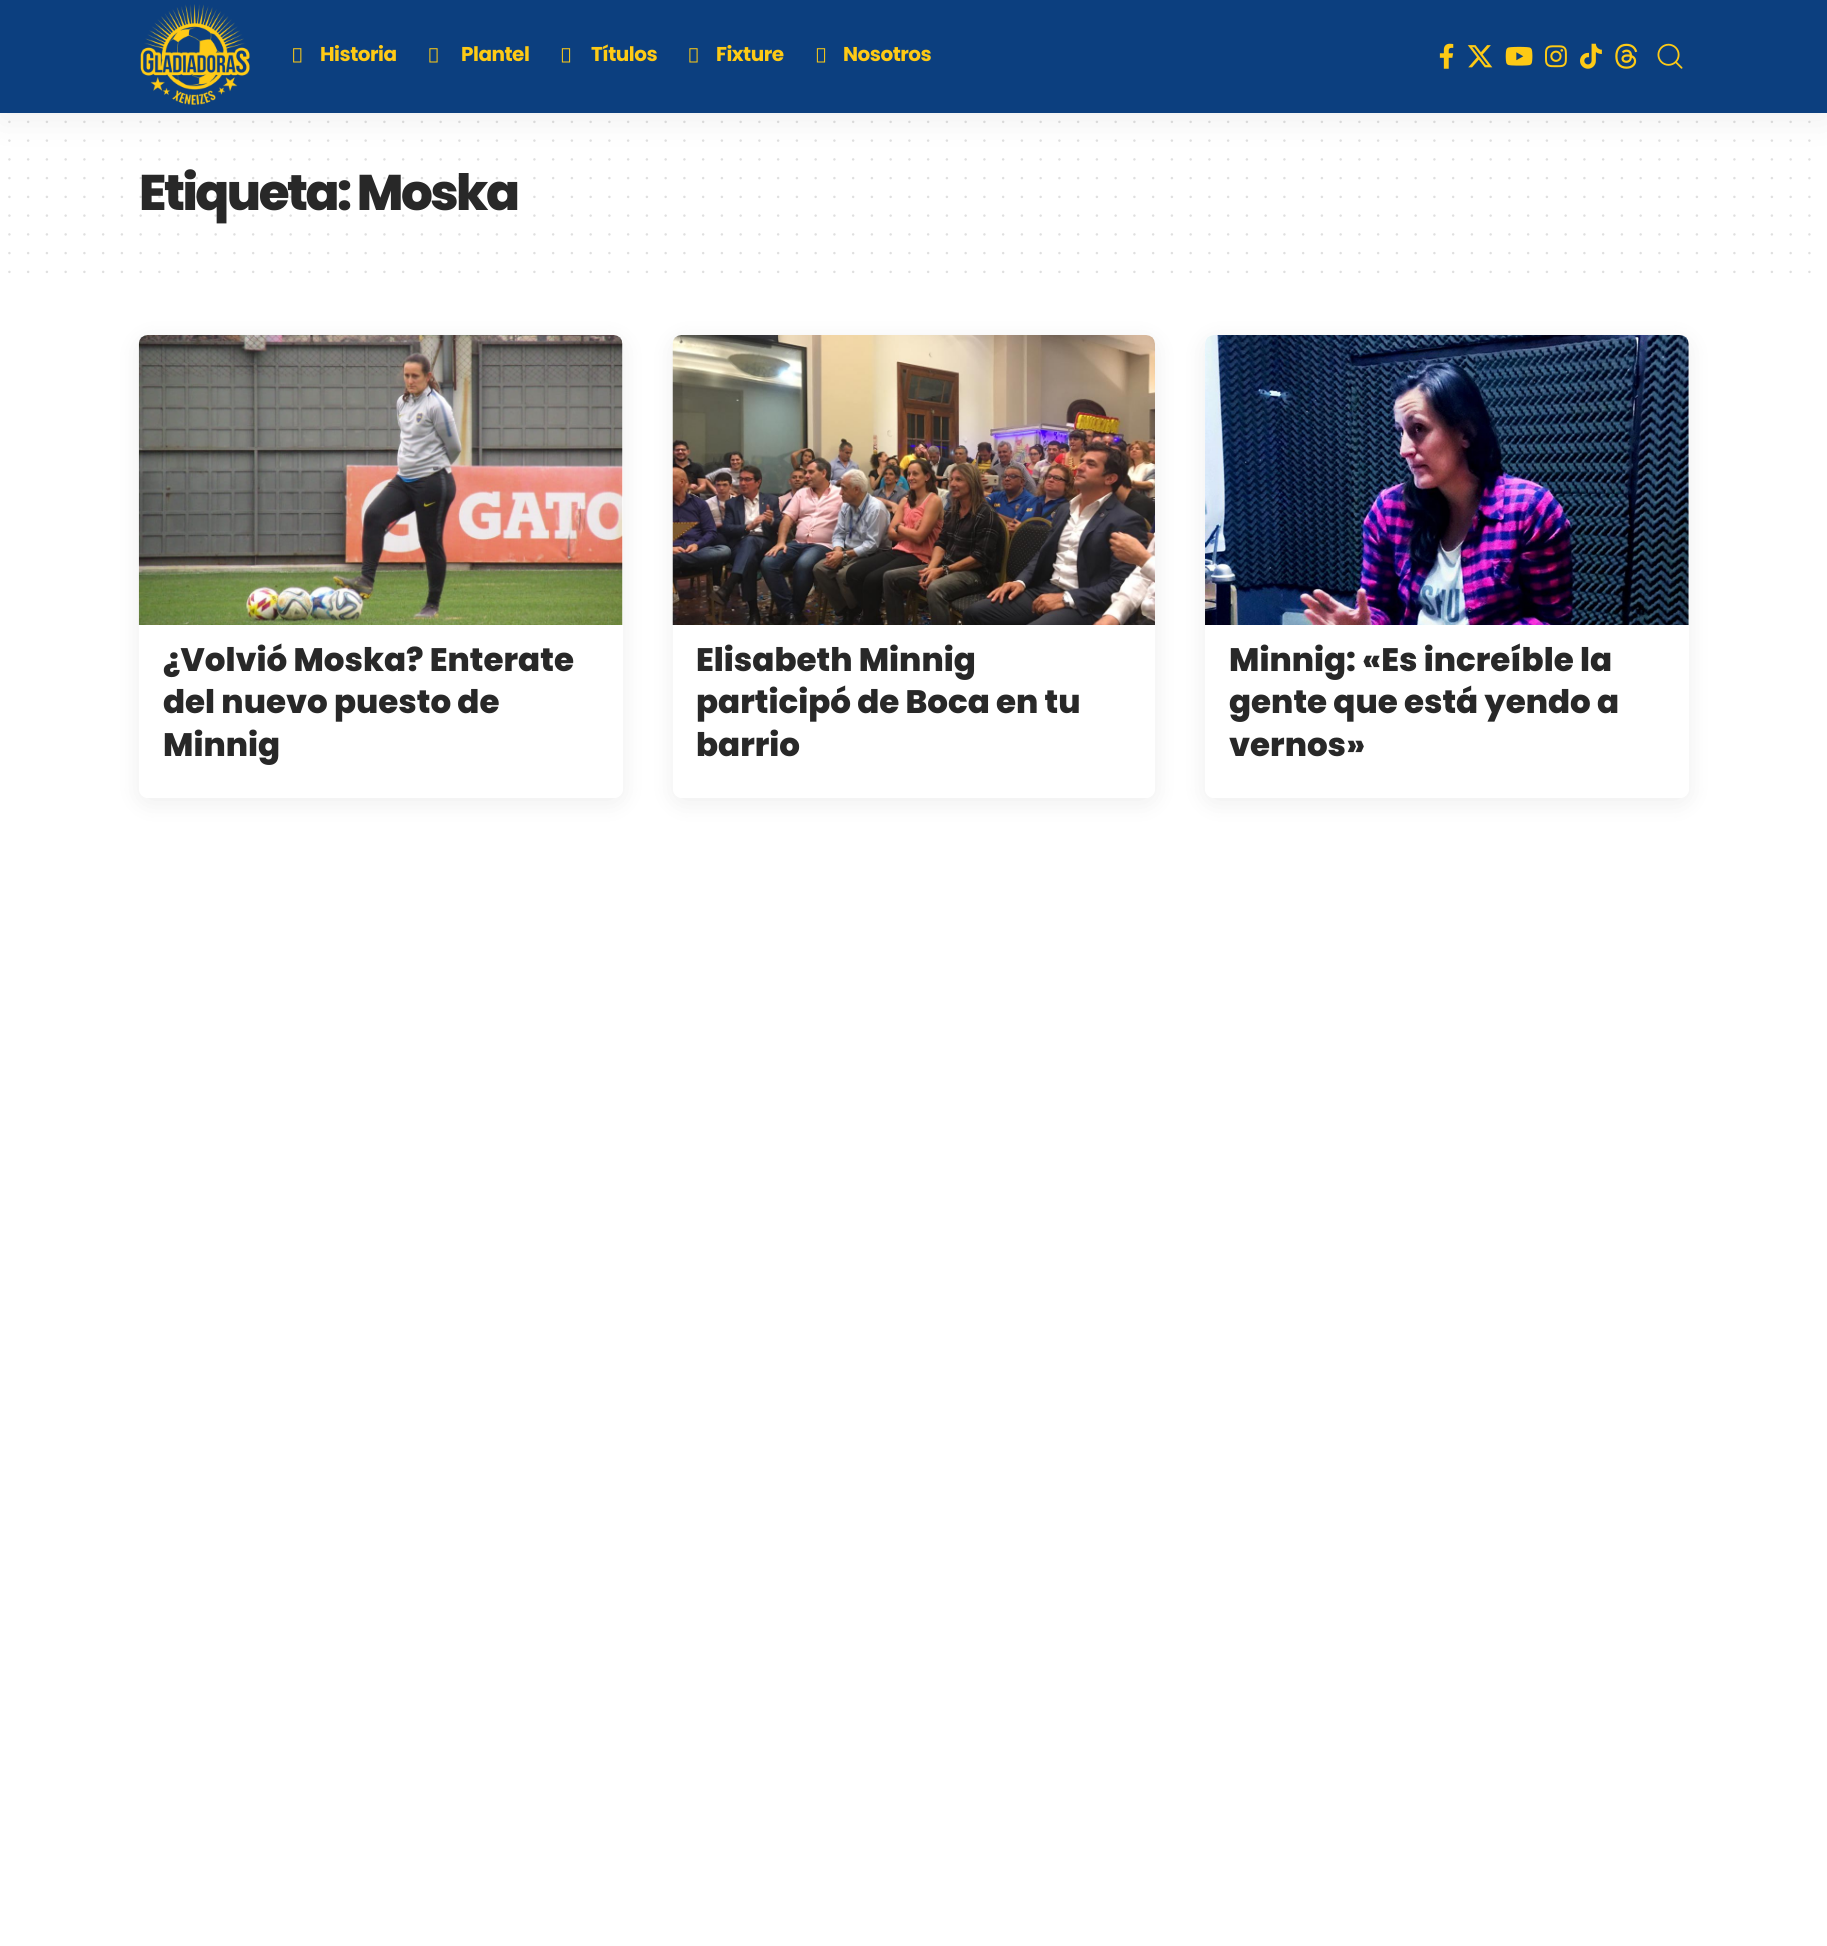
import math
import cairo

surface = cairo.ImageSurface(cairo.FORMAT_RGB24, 1827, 1946)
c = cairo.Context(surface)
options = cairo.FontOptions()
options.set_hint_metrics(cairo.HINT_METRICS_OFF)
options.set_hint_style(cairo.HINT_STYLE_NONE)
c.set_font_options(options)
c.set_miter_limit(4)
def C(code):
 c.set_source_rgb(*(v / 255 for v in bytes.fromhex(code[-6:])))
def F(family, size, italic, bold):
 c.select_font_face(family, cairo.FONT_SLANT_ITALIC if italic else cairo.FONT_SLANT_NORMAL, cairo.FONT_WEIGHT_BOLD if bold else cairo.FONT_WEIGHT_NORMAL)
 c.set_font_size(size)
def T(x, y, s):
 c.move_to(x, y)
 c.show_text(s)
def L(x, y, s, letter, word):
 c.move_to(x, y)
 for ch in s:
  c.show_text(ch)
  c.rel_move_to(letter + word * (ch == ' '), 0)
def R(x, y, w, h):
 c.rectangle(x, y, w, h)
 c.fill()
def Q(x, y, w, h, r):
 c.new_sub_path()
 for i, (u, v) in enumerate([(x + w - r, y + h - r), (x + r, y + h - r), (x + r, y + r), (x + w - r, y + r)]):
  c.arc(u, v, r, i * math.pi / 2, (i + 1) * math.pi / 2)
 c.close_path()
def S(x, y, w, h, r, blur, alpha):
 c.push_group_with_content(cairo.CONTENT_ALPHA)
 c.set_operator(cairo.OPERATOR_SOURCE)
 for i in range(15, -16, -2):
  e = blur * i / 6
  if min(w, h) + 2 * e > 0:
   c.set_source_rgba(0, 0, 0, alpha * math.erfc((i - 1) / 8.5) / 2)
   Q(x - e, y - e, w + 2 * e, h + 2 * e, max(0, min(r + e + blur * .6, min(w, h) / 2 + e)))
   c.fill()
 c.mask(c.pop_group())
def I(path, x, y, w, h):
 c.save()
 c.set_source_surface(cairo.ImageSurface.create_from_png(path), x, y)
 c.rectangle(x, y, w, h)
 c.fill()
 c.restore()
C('ffffff')
c.paint()
c.new_path()
c.move_to(9.4,121.9)
c.line_to(1809.6,121.9)
C('dfdfdf')
c.set_line_width(2.5)
c.set_line_cap(cairo.LINE_CAP_ROUND)
c.set_dash([0,18.75])
c.stroke()
c.new_path()
c.move_to(9.4,140.6)
c.line_to(1809.6,140.6)
c.stroke()
c.new_path()
c.move_to(9.4,159.4)
c.line_to(1809.6,159.4)
c.stroke()
C('000000')
S(0,5,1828,113,0,19,.07)
C('0c3f7f')
R(0,0,1827,113)
I('1.png',140,4,110,101)
I('2.png',293,48,9,15)
F('Poppins',20,0,1)
C('feca15')
L(320,61,'Historia',-.5,0)
I('3.png',429,48,9,15)
L(461,61,'Plantel',-.5,0)
I('4.png',561,48,10,15)
L(591,61,'Títulos',-.5,0)
I('3.png',689,48,9,15)
L(716,61,'Fixture',-.5,0)
I('4.png',816,48,10,15)
L(843,61,'Nosotros',-.5,0)
I('5.png',1439,43,15,26)
I('6.png',1467,45,26,23)
I('7.png',1505,46,28,20)
I('8.png',1545,45,22,23)
I('9.png',1580,43,22,26)
I('10.png',1615,43,23,26)
I('11.png',1657,43,26,26)
F('Poppins ExtraBold',50,0,0)
C('282828')
L(139,210,'Etiqueta: Moska',-2.5,0)
c.new_path()
c.move_to(9.4,178.1)
c.line_to(1809.6,178.1)
c.set_source_rgba(0.157,0.157,0.157,0.15)
c.stroke()
c.new_path()
c.move_to(9.4,196.9)
c.line_to(1809.6,196.9)
c.stroke()
c.new_path()
c.move_to(9.4,215.6)
c.line_to(1809.6,215.6)
c.stroke()
c.new_path()
c.move_to(9.4,234.4)
c.line_to(1809.6,234.4)
C('dfdfdf')
c.stroke()
c.new_path()
c.move_to(9.4,253.1)
c.line_to(1809.6,253.1)
c.stroke()
c.new_path()
c.move_to(9.4,271.9)
c.line_to(1809.6,271.9)
c.stroke()
c.save()
c.set_fill_rule(cairo.FILL_RULE_EVEN_ODD)
c.new_path()
c.move_to(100,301)
c.line_to(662,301)
c.line_to(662,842)
c.line_to(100,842)
c.close_path()
c.move_to(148,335)
c.line_to(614,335)
c.curve_to(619,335,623,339,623,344)
c.line_to(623,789)
c.curve_to(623,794,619,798,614,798)
c.line_to(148,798)
c.curve_to(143,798,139,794,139,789)
c.line_to(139,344)
c.curve_to(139,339,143,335,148,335)
c.close_path()
c.clip()
C('000000')
S(139,340,484,463,9,12.5,.07)
c.restore()
I('12.png',138,335,485,290)
F('Poppins ExtraBold',32.5,0,0)
C('282828')
T(163,671,'¿Volvió Moska? Enterate')
T(163,713,'del nuevo puesto de')
T(163,756,'Minnig')
c.save()
c.set_fill_rule(cairo.FILL_RULE_EVEN_ODD)
c.new_path()
c.move_to(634,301)
c.line_to(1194,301)
c.line_to(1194,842)
c.line_to(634,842)
c.close_path()
c.move_to(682,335)
c.line_to(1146,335)
c.curve_to(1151,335,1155,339,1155,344)
c.line_to(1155,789)
c.curve_to(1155,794,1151,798,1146,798)
c.line_to(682,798)
c.curve_to(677,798,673,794,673,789)
c.line_to(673,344)
c.curve_to(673,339,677,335,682,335)
c.close_path()
c.clip()
C('000000')
S(673,340,482,463,9,12.5,.07)
c.restore()
I('13.png',672,335,483,290)
T(696,671,'Elisabeth Minnig')
T(696,713,'participó de Boca en tu')
T(696,756,'barrio')
c.save()
c.set_fill_rule(cairo.FILL_RULE_EVEN_ODD)
c.new_path()
c.move_to(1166,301)
c.line_to(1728,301)
c.line_to(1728,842)
c.line_to(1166,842)
c.close_path()
c.move_to(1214,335)
c.line_to(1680,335)
c.curve_to(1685,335,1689,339,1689,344)
c.line_to(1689,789)
c.curve_to(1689,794,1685,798,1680,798)
c.line_to(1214,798)
c.curve_to(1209,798,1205,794,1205,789)
c.line_to(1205,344)
c.curve_to(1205,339,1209,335,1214,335)
c.close_path()
c.clip()
C('000000')
S(1205,340,484,463,9,12.5,.07)
c.restore()
I('14.png',1205,335,484,290)
T(1229,671,'Minnig: «Es increíble la')
T(1229,713,'gente que está yendo a')
T(1229,756,'vernos»')
surface.write_to_png('o.png')
